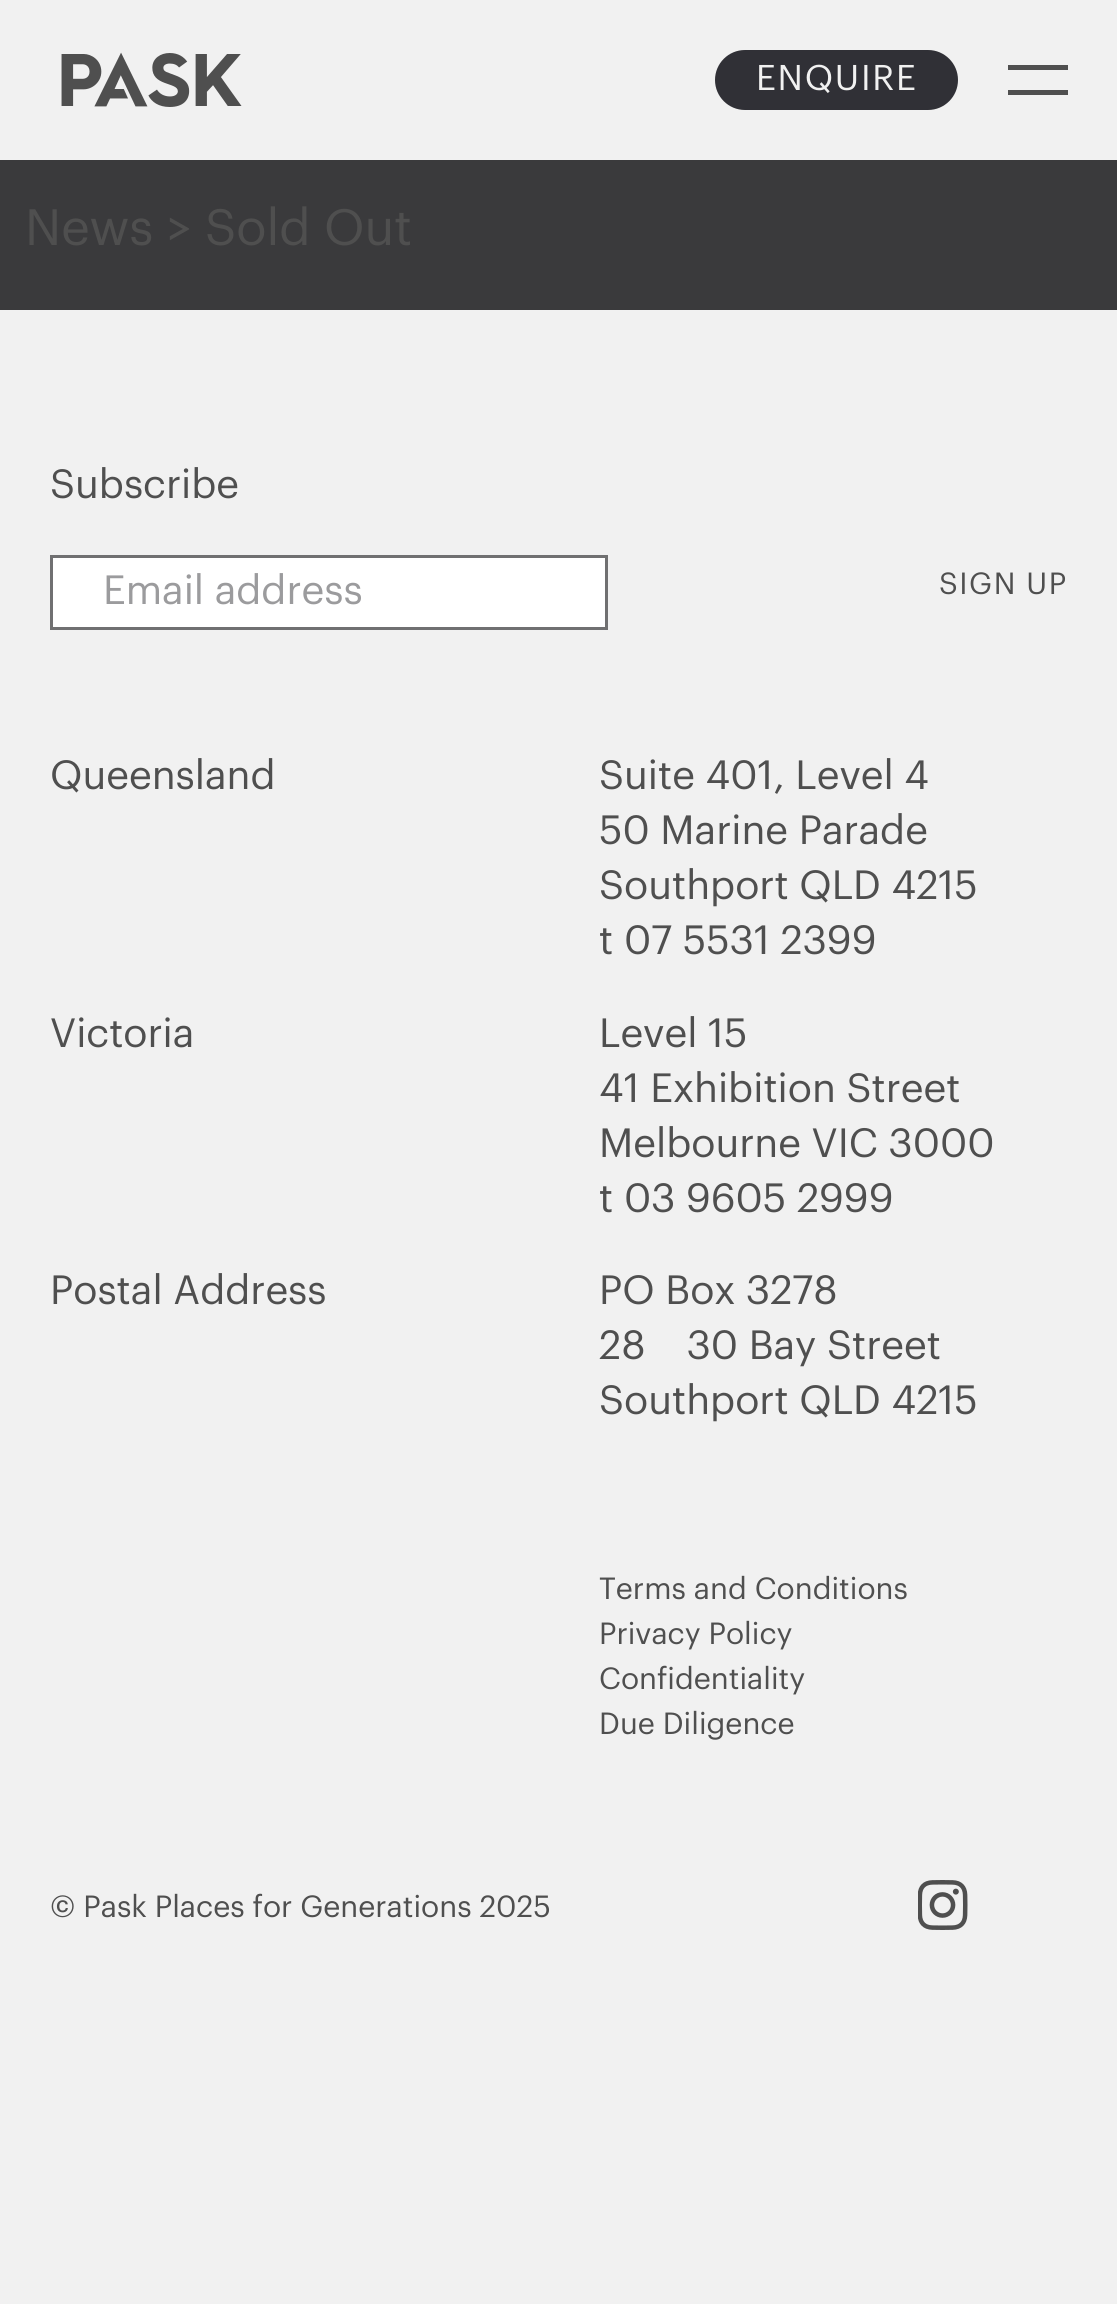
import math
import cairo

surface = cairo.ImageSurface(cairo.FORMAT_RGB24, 1117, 2304)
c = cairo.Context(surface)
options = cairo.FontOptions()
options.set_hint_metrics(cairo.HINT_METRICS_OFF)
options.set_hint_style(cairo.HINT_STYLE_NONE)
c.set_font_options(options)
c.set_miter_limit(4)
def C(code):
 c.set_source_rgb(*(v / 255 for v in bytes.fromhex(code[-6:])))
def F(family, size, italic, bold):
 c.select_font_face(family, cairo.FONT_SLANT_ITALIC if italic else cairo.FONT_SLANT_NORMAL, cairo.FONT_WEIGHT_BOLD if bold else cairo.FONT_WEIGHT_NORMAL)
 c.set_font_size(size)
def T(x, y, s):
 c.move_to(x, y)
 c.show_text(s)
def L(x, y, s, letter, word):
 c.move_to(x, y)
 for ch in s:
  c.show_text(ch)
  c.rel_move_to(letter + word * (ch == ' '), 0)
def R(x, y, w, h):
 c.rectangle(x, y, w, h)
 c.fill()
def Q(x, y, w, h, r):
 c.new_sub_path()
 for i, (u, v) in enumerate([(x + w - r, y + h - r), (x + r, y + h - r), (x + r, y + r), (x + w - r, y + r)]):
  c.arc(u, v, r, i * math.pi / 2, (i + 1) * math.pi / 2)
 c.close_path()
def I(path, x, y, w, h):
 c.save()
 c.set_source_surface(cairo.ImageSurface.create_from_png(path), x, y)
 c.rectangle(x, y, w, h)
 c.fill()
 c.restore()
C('f1f1f1')
c.paint()
I('1.png',61,52,181,55)
C('303036')
Q(715,50,243,60,30)
c.fill()
F('Graphik',35,1,0)
C('f1f1f1')
L(756,90,'ENQUIRE',1.75,0)
C('4f4f4f')
R(1008,65,60,5)
R(1008,90,60,5)
C('3a3a3c')
R(0,160,1117,150)
F('Graphik',50,1,0)
C('4f4f4f')
T(25,245,'News > Sold Out')
F('Graphik',40,1,0)
T(50,498,'Subscribe')
C('ffffff')
c.rectangle(51.5,556.5,555,72)
c.fill_preserve()
C('707071')
c.set_line_width(3)
c.stroke()
C('9b9b9d')
T(103,604,'Email address')
F('Graphik',30,1,0)
C('4f4f4f')
L(939,594,'SIGN UP',1.5,0)
F('Graphik',40,1,0)
T(50,789,'Queensland')
T(599,789,'Suite 401, Level 4')
T(599,844,'50 Marine Parade')
T(599,899,'Southport QLD 4215')
T(599,954,'t')
T(624,954,'07 5531 2399')
T(50,1047,'Victoria')
T(599,1047,'Level 15')
T(599,1102,'41 Exhibition Street')
T(599,1157,'Melbourne VIC 3000')
T(599,1212,'t')
T(624,1212,'03 9605 2999')
T(50,1304,'Postal Address')
T(599,1304,'PO Box 3278')
T(599,1359,'28 ‑ 30 Bay Street')
T(599,1414,'Southport QLD 4215')
F('Graphik',30,1,0)
T(599,1599,'Terms and Conditions')
T(599,1644,'Privacy Policy')
T(599,1689,'Confidentiality')
T(599,1734,'Due Diligence')
T(50,1917,'© Pask Places for Generations 2025')
I('2.png',918,1880,50,50)
surface.write_to_png('o.png')
